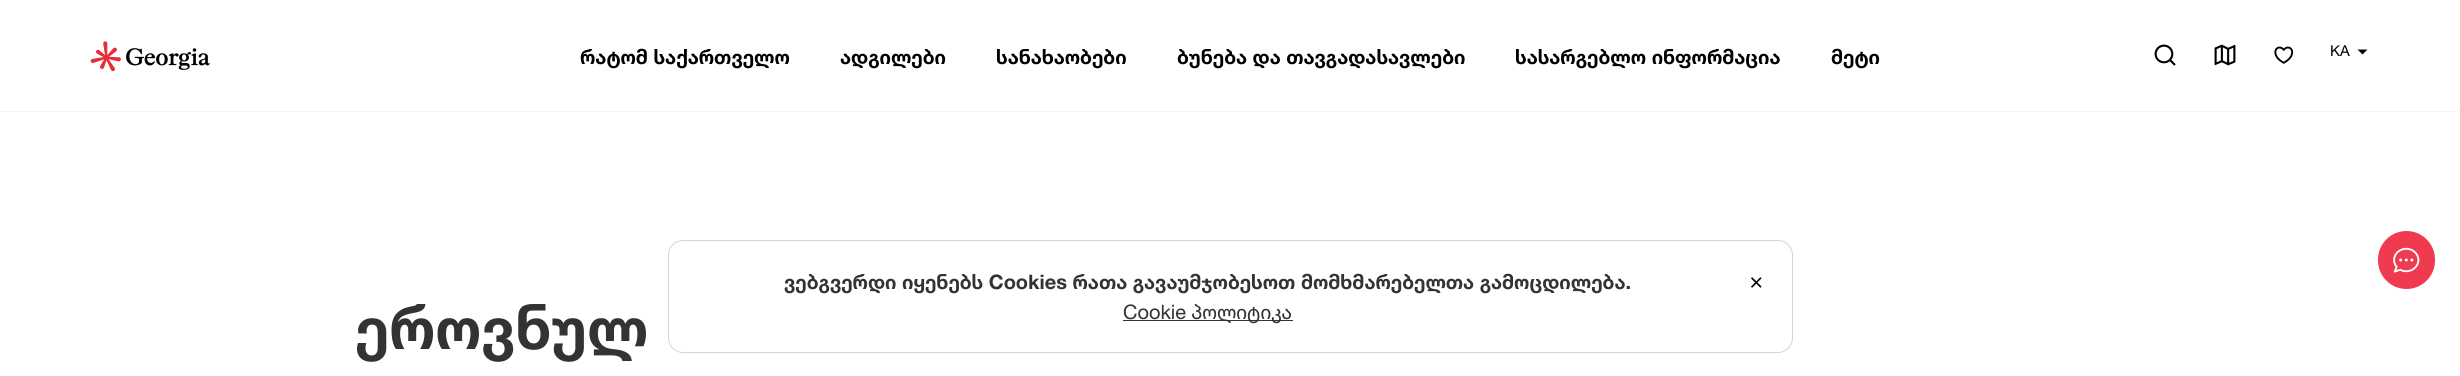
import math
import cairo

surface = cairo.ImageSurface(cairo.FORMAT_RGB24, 2460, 376)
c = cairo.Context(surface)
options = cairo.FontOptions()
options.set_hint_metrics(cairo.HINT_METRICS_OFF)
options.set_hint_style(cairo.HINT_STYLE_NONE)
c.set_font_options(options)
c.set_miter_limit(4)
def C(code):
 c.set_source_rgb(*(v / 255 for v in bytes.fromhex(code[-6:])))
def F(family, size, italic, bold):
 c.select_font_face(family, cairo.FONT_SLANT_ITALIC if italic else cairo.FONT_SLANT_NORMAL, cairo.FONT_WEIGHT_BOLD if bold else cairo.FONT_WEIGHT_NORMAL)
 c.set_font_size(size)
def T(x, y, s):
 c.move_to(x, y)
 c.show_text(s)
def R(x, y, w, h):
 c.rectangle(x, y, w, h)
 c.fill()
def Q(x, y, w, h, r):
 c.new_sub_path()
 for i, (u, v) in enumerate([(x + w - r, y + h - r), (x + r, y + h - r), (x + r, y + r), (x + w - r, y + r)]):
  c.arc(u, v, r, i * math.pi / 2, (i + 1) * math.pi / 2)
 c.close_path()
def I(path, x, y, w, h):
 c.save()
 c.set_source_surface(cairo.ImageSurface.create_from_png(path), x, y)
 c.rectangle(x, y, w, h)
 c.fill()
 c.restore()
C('ffffff')
c.paint()
C('f6f6f6')
R(0,111,2460,1)
I('1.png',90,41,120,31)
F('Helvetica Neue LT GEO',20,0,1)
C('000000')
T(580,64,'რატომ საქართველო')
T(840,64,'ადგილები')
T(996,64,'სანახაობები')
T(1177,64,'ბუნება და თავგადასავლები')
T(1515,64,'სასარგებლო ინფორმაცია')
T(1831,64,'მეტი')
I('2.png',2154,44,22,22)
I('3.png',2214,44,22,22)
I('4.png',2274,46,20,18)
F('Helvetica Neue LT GEO',15,0,0)
T(2330,56,'KA')
c.new_path()
c.move_to(2362.5,54.5)
c.line_to(2357.5,49.5)
c.line_to(2367.5,49.5)
c.close_path()
c.fill()
C('ef3a50')
Q(2378,231,57,58,28.5)
c.fill()
I('5.png',2393,247,27,26)
Q(668.5,240.5,1124,112,14.5)
C('d0d5dd')
c.set_line_width(1)
c.stroke()
F('Helvetica Neue LT GEO',20,0,1)
C('333333')
T(784,289,'ვებგვერდი იყენებს Cookies რათა გავაუმჯობესოთ მომხმარებელთა გამოცდილება.')
R(1123,320,170,1)
F('Helvetica Neue LT GEO',20,0,0)
T(1123,319,'Cookie პოლიტიკა')
I('6.png',1751,277,11,11)
F('Helvetica Neue LT GEO',60,0,1)
T(355,349,'ეროვნულ')
surface.write_to_png('o.png')
